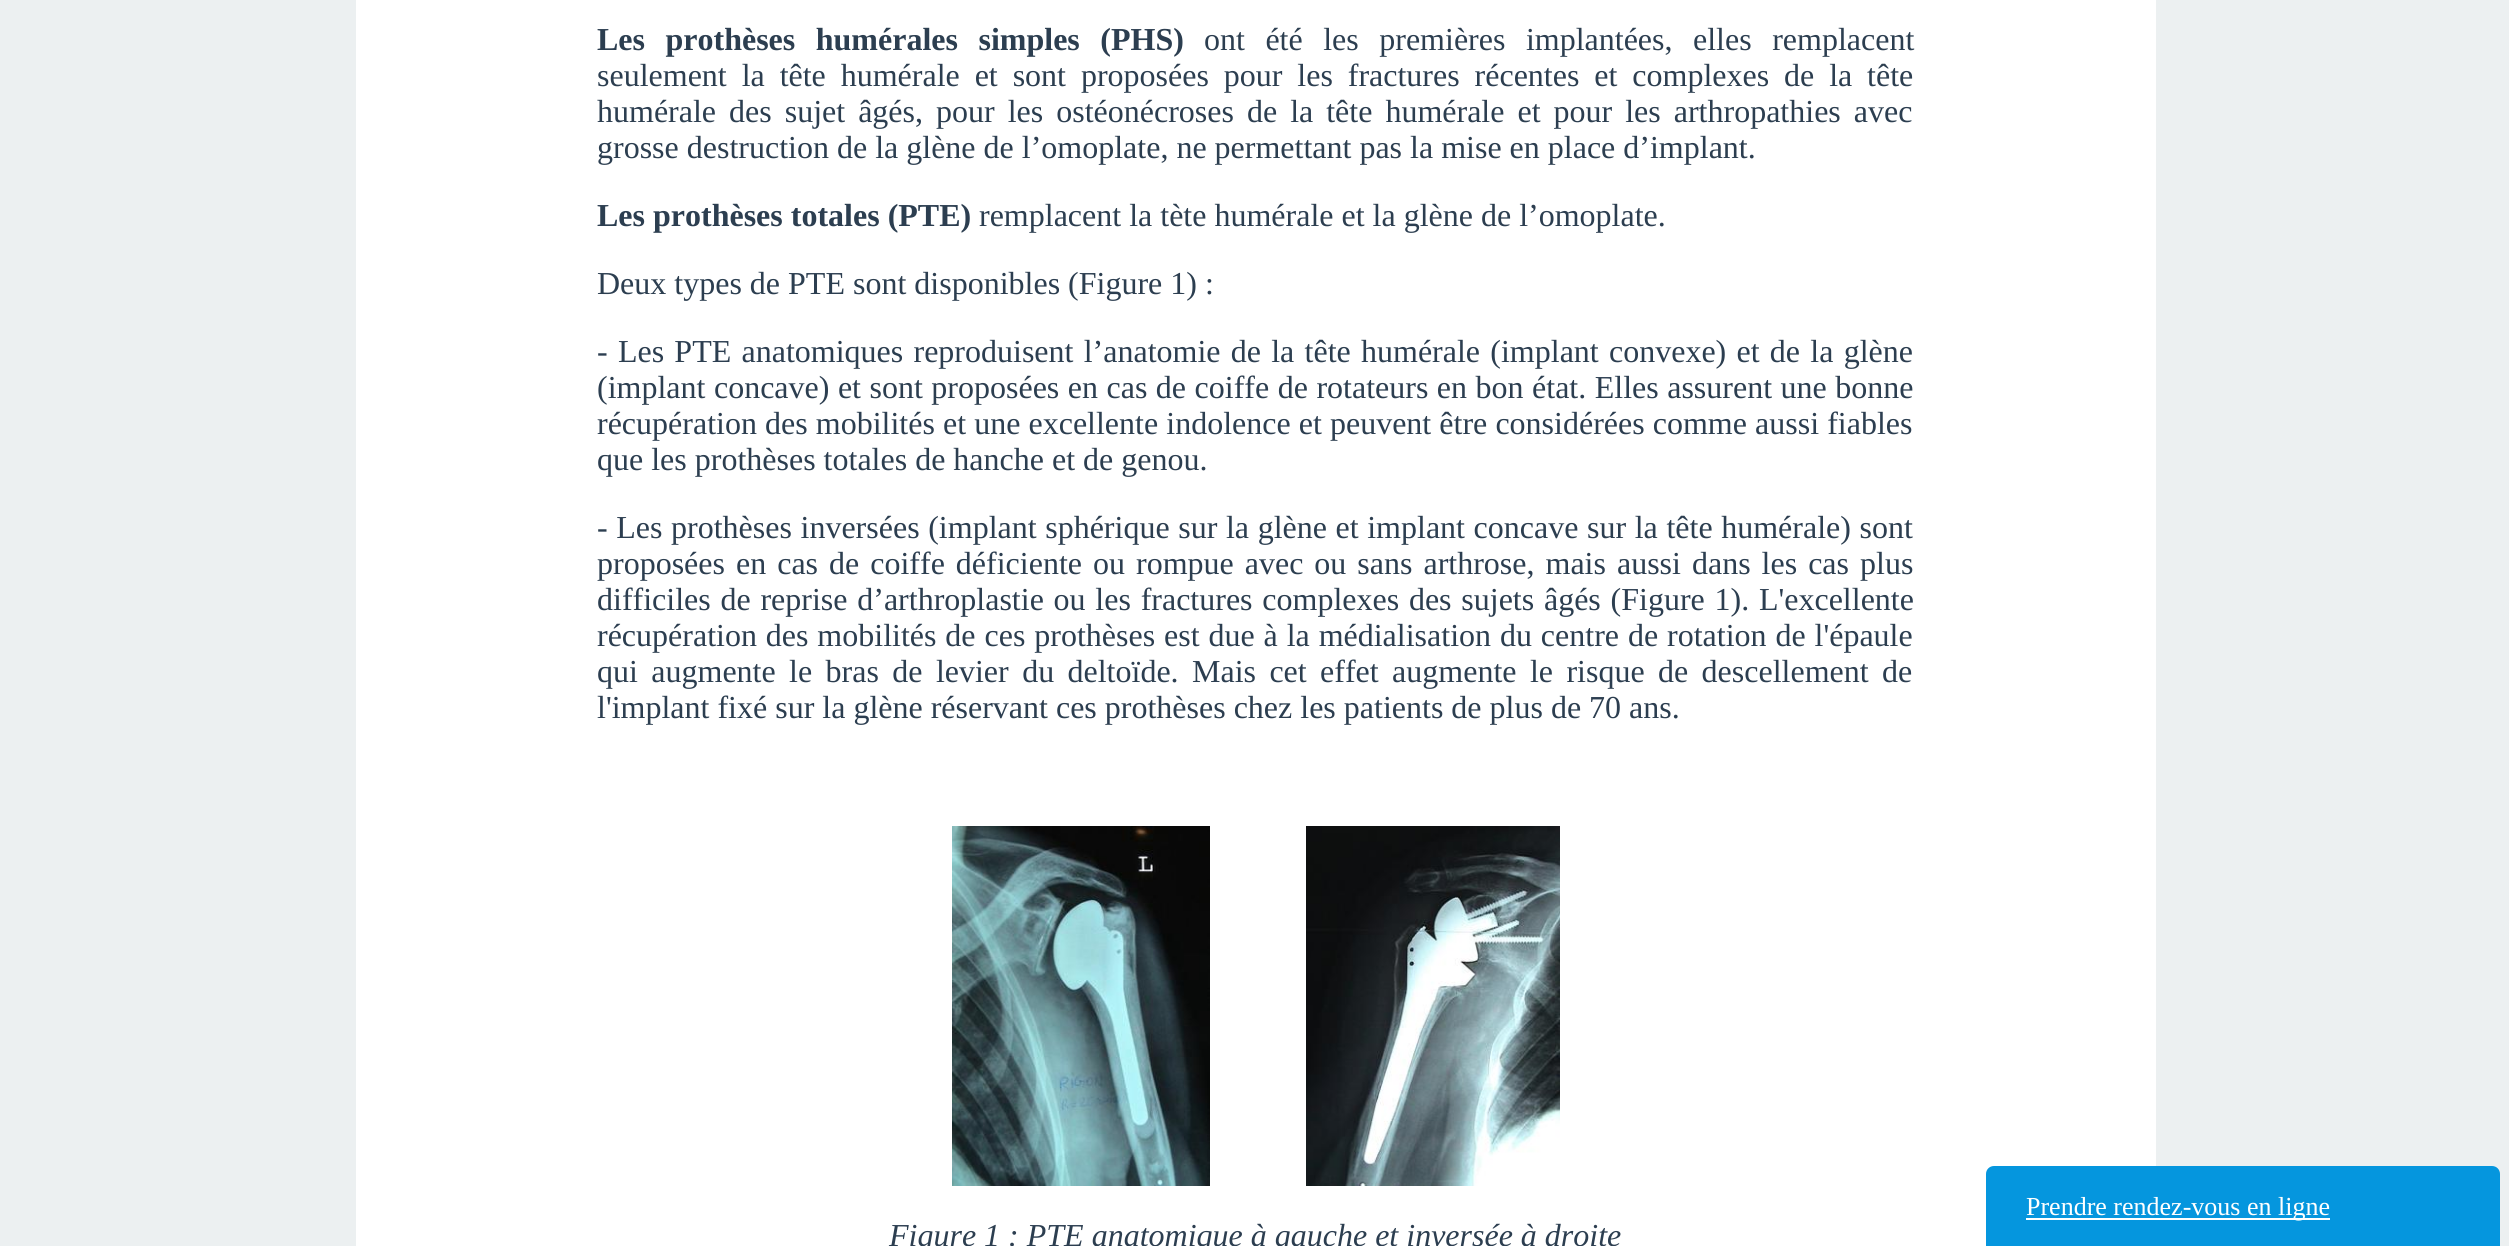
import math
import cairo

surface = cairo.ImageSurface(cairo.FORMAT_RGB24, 2509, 1246)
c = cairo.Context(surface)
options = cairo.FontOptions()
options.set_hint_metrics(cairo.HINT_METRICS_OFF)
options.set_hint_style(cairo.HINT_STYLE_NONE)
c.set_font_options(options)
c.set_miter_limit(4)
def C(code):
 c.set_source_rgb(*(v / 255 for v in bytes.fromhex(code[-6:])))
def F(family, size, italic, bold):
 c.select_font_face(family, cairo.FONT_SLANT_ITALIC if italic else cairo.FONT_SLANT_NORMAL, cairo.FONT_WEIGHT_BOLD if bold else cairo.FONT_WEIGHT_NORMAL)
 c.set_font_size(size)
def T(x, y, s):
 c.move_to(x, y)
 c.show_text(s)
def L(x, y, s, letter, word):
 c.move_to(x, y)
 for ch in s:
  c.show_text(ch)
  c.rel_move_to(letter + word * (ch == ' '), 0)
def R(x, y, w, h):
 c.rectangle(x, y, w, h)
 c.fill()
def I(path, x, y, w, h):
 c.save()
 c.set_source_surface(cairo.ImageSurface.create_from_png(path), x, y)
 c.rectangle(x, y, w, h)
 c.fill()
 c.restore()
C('ecf0f1')
c.paint()
C('ffffff')
R(356,0,1800,1246)
F('Liberation Serif',32,0,1)
C('2c3e50')
L(597,50,'Les prothèses humérales simples (PHS)',0,12.5)
F('Liberation Serif',32,0,0)
L(1204,50,'ont été les premières implantées, elles remplacent',0,12.5)
L(597,86,'seulement la tête humérale et sont proposées pour les fractures récentes et complexes de la tête',0,6.9)
L(597,122,'humérale des sujet âgés, pour les ostéonécroses de la tête humérale et pour les arthropathies avec',0,5)
T(597,158,'grosse destruction de la glène de l’omoplate, ne permettant pas la mise en place d’implant.')
F('Liberation Serif',32,0,1)
T(597,226,'Les prothèses totales (PTE)')
F('Liberation Serif',32,0,0)
T(979,226,'remplacent la tète humérale et la glène de l’omoplate.')
T(597,294,'Deux types de PTE sont disponibles (Figure 1) :')
L(597,362,'- Les PTE anatomiques reproduisent l’anatomie de la tête humérale (implant convexe) et de la glène',0,2.25)
L(597,398,'(implant concave) et sont proposées en cas de coiffe de rotateurs en bon état. Elles assurent une bonne',0,.5)
L(597,434,'récupération des mobilités et une excellente indolence et peuvent être considérées comme aussi fiables',0,.1)
T(597,470,'que les prothèses totales de hanche et de genou.')
L(597,538,'- Les prothèses inversées (implant sphérique sur la glène et implant concave sur la tête humérale) sont',0,.6)
L(597,574,'proposées en cas de coiffe déficiente ou rompue avec ou sans arthrose, mais aussi dans les cas plus',0,3)
L(597,610,'difficiles de reprise d’arthroplastie ou les fractures complexes des sujets âgés (Figure 1). L\'excellente',0,1.75)
L(597,646,'récupération des mobilités de ces prothèses est due à la médialisation du centre de rotation de l\'épaule',0,.9)
L(597,682,'qui augmente le bras de levier du deltoïde. Mais cet effet augmente le risque de descellement de',0,5.4)
T(597,718,'l\'implant fixé sur la glène réservant ces prothèses chez les patients de plus de 70 ans.')
I('1.png',952,826,258,360)
I('2.png',1306,826,254,360)
F('Liberation Serif',32,1,0)
T(889,1246,'Figure 1 : PTE anatomique à gauche et inversée à droite')
C('0596de')
c.new_path()
c.move_to(1994,1166)
c.line_to(2492,1166)
c.curve_to(2496.5,1166,2500,1169.5,2500,1174)
c.line_to(2500,1246)
c.line_to(1986,1246)
c.line_to(1986,1174)
c.curve_to(1986,1169.5,1989.5,1166,1994,1166)
c.close_path()
c.fill()
C('ffffff')
R(2026,1218,304,2)
F('Liberation Serif',26,0,0)
T(2026,1215,'Prendre rendez-vous en ligne')
surface.write_to_png('o.png')
